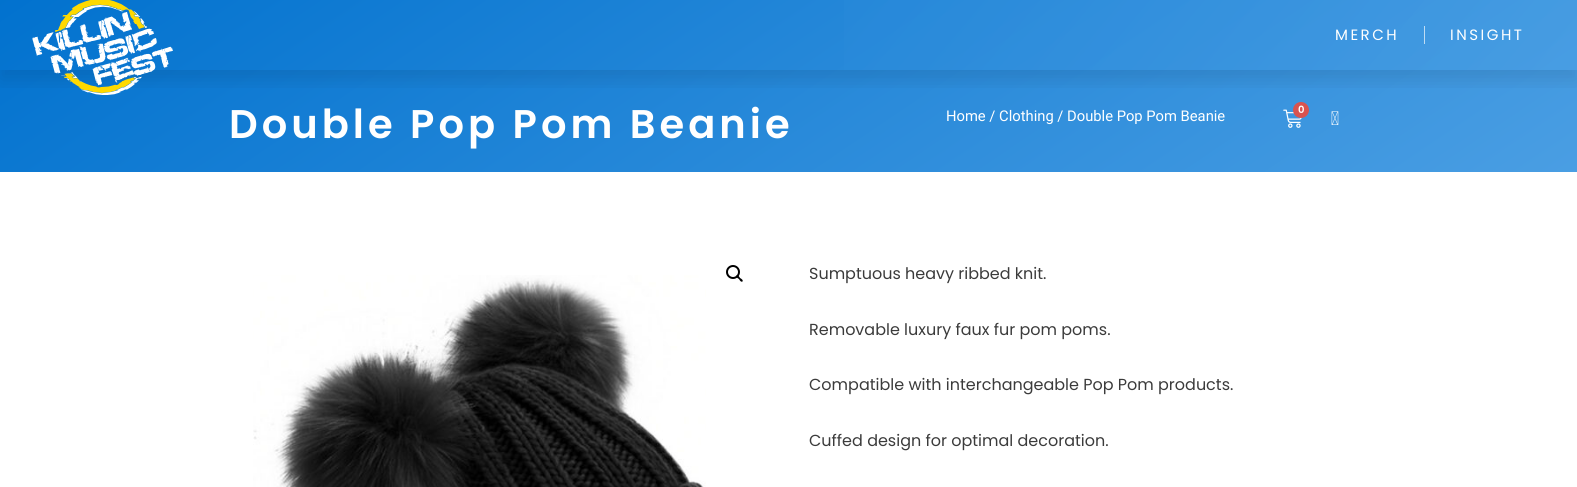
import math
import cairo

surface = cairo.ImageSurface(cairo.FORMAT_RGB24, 1577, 487)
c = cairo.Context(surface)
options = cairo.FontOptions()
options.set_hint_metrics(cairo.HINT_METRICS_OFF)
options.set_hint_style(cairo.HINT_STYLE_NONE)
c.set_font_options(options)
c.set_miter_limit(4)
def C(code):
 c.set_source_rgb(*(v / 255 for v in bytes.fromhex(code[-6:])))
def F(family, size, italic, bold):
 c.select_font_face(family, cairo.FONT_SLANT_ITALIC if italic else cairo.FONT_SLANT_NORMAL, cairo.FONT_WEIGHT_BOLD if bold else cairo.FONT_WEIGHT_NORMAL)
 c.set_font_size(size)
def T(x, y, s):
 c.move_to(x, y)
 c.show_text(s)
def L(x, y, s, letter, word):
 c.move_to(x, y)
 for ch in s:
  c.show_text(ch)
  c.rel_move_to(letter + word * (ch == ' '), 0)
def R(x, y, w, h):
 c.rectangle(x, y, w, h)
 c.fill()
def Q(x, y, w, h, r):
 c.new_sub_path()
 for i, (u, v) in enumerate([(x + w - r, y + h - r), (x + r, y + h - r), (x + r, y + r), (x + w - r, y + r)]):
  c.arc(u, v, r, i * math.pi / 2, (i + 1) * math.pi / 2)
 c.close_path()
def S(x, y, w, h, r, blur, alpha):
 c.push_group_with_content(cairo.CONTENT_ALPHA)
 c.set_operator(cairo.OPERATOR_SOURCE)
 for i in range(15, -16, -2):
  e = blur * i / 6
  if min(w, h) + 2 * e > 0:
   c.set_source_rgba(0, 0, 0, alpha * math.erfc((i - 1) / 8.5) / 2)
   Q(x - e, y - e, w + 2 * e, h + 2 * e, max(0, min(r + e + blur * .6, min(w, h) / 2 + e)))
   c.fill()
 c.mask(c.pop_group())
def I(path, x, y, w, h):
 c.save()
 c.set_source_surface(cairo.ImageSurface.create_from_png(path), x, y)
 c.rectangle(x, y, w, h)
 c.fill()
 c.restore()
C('ffffff')
c.paint()
gradient = cairo.LinearGradient(497,-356,1080,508)
gradient.add_color_stop_rgba(0,0,0.443,0.808,1)
gradient.add_color_stop_rgba(1,0.29,0.62,0.89,1)
c.set_source(gradient)
R(0,0,1577,172)
I('2.png',1283,109,19,19)
C('d9534f')
c.arc(1301,110,8,0,2 * math.pi)
c.fill()
c.save()
c.rectangle(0,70,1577,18)
c.clip()
C('000000')
S(0,10,1577,70,0,10,.1)
c.restore()
gradient = cairo.LinearGradient(309,-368,1268,438)
gradient.add_color_stop_rgba(0,0,0.443,0.808,.66)
gradient.add_color_stop_rgba(1,0.29,0.62,0.89,.66)
c.set_source(gradient)
R(844,0,733,70)
I('1.png',32,0,141,95)
F('Poppins',15,0,0)
C('ffffff')
L(1335,40,'MERCH',2.5,0)
C('bedcf4')
R(1424,26,1,18)
C('ffffff')
L(1450,40,'INSIGHT',2.5,0)
F('Poppins SemiBold',40,0,0)
L(229,138,'Double Pop Pom Beanie',4,0)
F('Roboto',14.75,0,0)
T(946,121,'Home / Clothing / Double Pop Pom Beanie')
F('Poppins SemiBold',10,0,0)
T(1298,113,'0')
I('3.png',1331,111,8,14)
I('4.png',253,275,453,212)
c.arc(733,272,6,0,2 * math.pi)
C('000000')
c.stroke()
c.new_path()
c.move_to(736.5,275.5)
c.curve_to(738,274.5,739.5,277,740,278)
c.curve_to(741,278.5,743.5,280,742.5,281.5)
c.curve_to(741,282.5,739.5,280,739,279)
c.curve_to(738,278.5,735.5,277,736.5,275.5)
c.close_path()
c.fill()
F('Poppins',16,0,0)
C('3b3b3b')
T(809,279,'Sumptuous heavy ribbed knit.')
T(809,335,'Removable luxury faux fur pom poms.')
T(809,390,'Compatible with interchangeable Pop Pom products.')
T(809,446,'Cuffed design for optimal decoration.')
surface.write_to_png('o.png')
